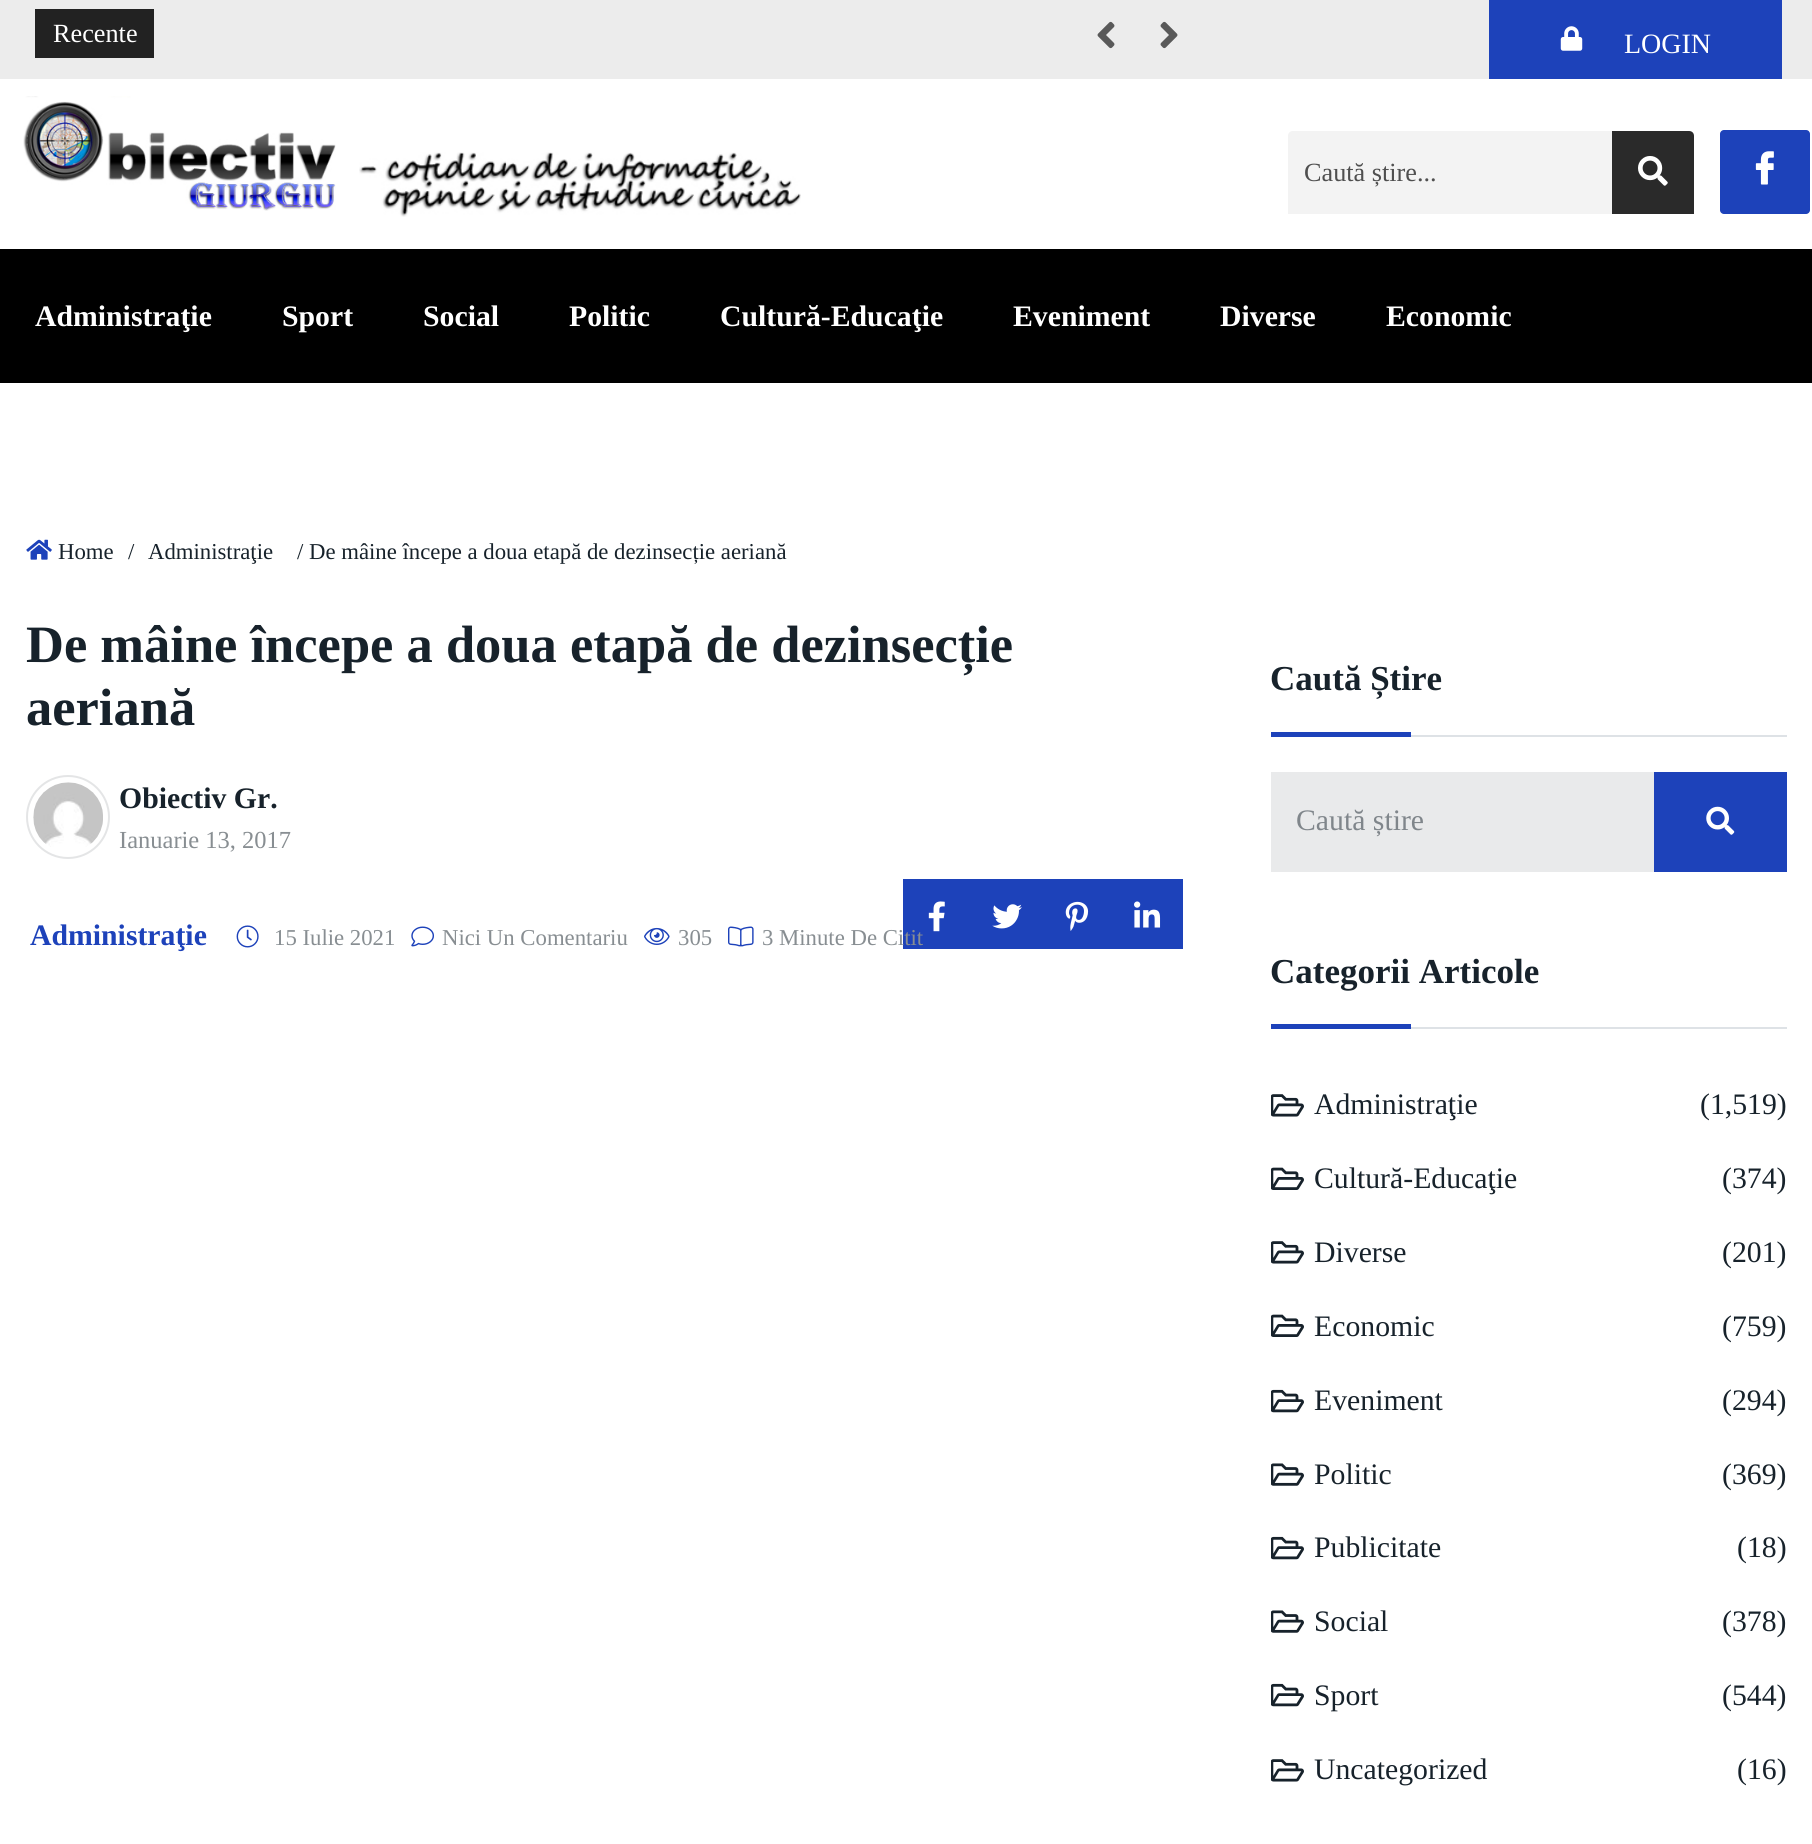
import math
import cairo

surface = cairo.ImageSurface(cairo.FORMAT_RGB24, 1812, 1844)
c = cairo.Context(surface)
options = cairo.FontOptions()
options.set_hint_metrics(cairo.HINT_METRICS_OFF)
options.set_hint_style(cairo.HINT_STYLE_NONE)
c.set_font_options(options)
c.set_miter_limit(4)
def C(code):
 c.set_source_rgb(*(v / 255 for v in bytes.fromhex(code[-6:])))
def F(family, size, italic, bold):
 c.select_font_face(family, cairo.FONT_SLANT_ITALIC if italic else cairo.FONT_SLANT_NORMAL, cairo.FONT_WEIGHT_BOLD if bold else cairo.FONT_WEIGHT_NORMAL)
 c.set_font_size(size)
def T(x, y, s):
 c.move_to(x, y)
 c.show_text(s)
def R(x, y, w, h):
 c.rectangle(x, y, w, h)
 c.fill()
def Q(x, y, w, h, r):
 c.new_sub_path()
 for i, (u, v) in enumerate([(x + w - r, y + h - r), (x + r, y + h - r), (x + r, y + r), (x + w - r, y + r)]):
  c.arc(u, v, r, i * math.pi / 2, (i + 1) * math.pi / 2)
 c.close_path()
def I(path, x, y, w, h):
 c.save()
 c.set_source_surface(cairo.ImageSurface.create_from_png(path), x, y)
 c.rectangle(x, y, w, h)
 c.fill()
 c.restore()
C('ffffff')
c.paint()
C('ececec')
R(0,0,1812,79)
C('222222')
R(35,9,119,49)
F('Liberation Serif',26.25,0,0)
C('ffffff')
T(53,42,'Recente')
I('1.png',1097,21,18,28)
I('2.png',1160,21,18,28)
C('1d42ba')
R(1489,0,293,79)
I('3.png',1560,26,23,25)
F('Liberation Serif',28,0,0)
C('ffffff')
T(1624,53,'LOGIN')
I('4.png',23,96,313,115)
I('5.png',359,152,442,65)
C('f3f3f3')
c.new_path()
c.move_to(1293,131)
c.line_to(1612,131)
c.line_to(1612,214)
c.line_to(1288,214)
c.line_to(1288,136)
c.curve_to(1288,133,1290,131,1293,131)
c.close_path()
c.fill()
F('Liberation Serif',26.25,0,0)
C('4f4f4f')
T(1304,181,'Caută știre...')
C('2a2a2a')
c.new_path()
c.move_to(1612,131)
c.line_to(1689,131)
c.curve_to(1692,131,1694,133,1694,136)
c.line_to(1694,214)
c.line_to(1612,214)
c.close_path()
c.fill()
I('6.png',1638,156,30,30)
C('1d42ba')
Q(1720,130,90,84,4)
c.fill()
I('7.png',1755,151,19,34)
C('000000')
R(0,249,1812,134)
F('Liberation Serif',29.75,0,1)
C('ffffff')
T(35,326,'Administraţie')
T(282,326,'Sport')
T(423,326,'Social')
T(569,326,'Politic')
T(720,326,'Cultură-Educaţie')
T(1013,326,'Eveniment')
T(1220,326,'Diverse')
T(1386,326,'Economic')
I('8.png',26,539,26,21)
F('Liberation Serif',22.75,0,0)
C('17222b')
T(58,559,'Home')
T(128,559,'/')
T(148,559,'Administraţie')
T(297,559,'/ De mâine începe a doua etapă de dezinsecție aeriană')
F('Liberation Serif',52.5,0,1)
T(26,662,'De mâine începe a doua etapă de dezinsecție')
T(26,725,'aeriană')
c.new_path()
c.arc(68,817,41,0,2 * math.pi)
C('e4e5e6')
c.stroke()
I('9.png',33,782,70,65)
F('Liberation Serif',29.75,0,1)
C('17222b')
T(119,808,'Obiectiv Gr.')
F('Liberation Serif',24.5,0,0)
C('888e92')
T(119,848,'Ianuarie 13, 2017')
C('1d42ba')
R(903,879,280,70)
I('10.png',928,901,17,31)
I('11.png',992,904,30,25)
I('12.png',1065,901,24,30)
I('13.png',1134,901,27,27)
F('Liberation Serif',29.75,0,1)
T(30,945,'Administraţie')
I('14.png',236,925,23,23)
F('Liberation Serif',22.75,0,0)
C('888e92')
T(274,945,'15 Iulie 2021')
I('15.png',411,926,23,21)
T(442,945,'Nici Un Comentariu')
I('16.png',644,927,26,18)
T(678,945,'305')
I('17.png',728,926,26,21)
T(762,945,'3 Minute De Citit')
C('dee2e6')
R(1411,735,376,2)
F('Liberation Serif',35,0,1)
C('17222b')
T(1270,690,'Caută Știre')
C('1d42ba')
R(1271,732,140,5)
C('e9eaeb')
R(1271,772,383,100)
F('Liberation Serif',29.75,0,0)
C('80868b')
T(1296,830,'Caută știre')
C('1d42ba')
R(1654,772,133,100)
I('18.png',1706,806,29,29)
C('dee2e6')
R(1411,1027,376,2)
F('Liberation Serif',35,0,1)
C('17222b')
T(1270,983,'Categorii Articole')
C('1d42ba')
R(1271,1024,140,5)
I('19.png',1271,1094,33,23)
F('Liberation Serif',29.75,0,0)
C('17222b')
T(1314,1114,'Administraţie')
T(1700,1114,'(1,519)')
I('20.png',1271,1167,33,23)
T(1314,1188,'Cultură-Educaţie')
T(1722,1188,'(374)')
I('19.png',1271,1241,33,23)
T(1314,1262,'Diverse')
T(1722,1262,'(201)')
I('20.png',1271,1314,33,23)
T(1314,1336,'Economic')
T(1722,1336,'(759)')
I('21.png',1271,1389,33,24)
T(1314,1410,'Eveniment')
T(1722,1410,'(294)')
I('22.png',1271,1463,33,23)
T(1314,1484,'Politic')
T(1722,1484,'(369)')
I('21.png',1271,1536,33,24)
T(1314,1557,'Publicitate')
T(1737,1557,'(18)')
I('22.png',1271,1610,33,23)
T(1314,1631,'Social')
T(1722,1631,'(378)')
I('21.png',1271,1683,33,24)
T(1314,1705,'Sport')
T(1722,1705,'(544)')
I('19.png',1271,1759,33,23)
T(1314,1779,'Uncategorized')
T(1737,1779,'(16)')
surface.write_to_png('o.png')
